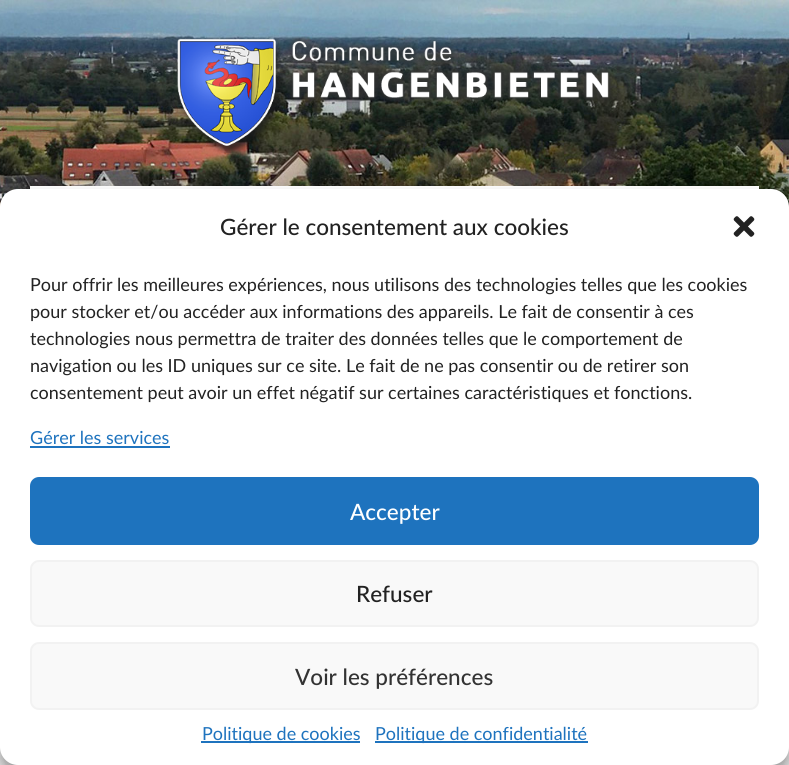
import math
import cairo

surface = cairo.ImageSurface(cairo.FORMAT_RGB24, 789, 765)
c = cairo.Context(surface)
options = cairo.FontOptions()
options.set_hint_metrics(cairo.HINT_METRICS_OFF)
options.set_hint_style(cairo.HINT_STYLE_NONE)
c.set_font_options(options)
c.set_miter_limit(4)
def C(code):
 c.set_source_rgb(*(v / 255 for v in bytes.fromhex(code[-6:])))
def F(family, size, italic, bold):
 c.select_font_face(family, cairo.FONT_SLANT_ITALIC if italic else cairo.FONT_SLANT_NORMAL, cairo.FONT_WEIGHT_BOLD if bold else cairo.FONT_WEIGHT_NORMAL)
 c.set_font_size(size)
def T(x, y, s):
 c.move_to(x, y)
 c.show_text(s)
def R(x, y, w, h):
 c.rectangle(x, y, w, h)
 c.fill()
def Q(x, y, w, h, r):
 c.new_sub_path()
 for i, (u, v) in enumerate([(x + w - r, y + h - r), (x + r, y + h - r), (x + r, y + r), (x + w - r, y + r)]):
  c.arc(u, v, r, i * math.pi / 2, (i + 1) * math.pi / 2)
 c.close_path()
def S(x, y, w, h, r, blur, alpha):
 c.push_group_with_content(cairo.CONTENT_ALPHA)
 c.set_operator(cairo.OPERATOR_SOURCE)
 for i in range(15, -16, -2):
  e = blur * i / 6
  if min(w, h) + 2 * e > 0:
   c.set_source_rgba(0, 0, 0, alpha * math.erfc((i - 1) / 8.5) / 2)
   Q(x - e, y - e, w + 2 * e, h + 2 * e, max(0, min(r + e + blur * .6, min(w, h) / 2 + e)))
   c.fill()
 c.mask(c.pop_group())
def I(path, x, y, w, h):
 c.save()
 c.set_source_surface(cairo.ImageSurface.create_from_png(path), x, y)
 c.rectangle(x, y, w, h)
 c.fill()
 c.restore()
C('f2f2f2')
c.paint()
I('1.png',0,0,789,750)
I('2.png',177,36,436,117)
C('ffffff')
R(30,186,729,3)
C('000000')
S(0,198,789,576,18,4.5,.23)
S(0,204,789,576,18,15,.19)
C('ffffff')
Q(0,189,789,576,18)
c.fill()
F('Lato Medium',22.5,0,0)
C('222222')
T(220,235,'Gérer le consentement aux cookies')
I('3.png',733,216,22,21)
F('Lato',18,0,0)
T(30,291,'Pour offrir les meilleures expériences, nous utilisons des technologies telles que les cookies')
T(30,318,'pour stocker et/ou accéder aux informations des appareils. Le fait de consentir à ces')
T(30,345,'technologies nous permettra de traiter des données telles que le comportement de')
T(30,372,'navigation ou les ID uniques sur ce site. Le fait de ne pas consentir ou de retirer son')
T(30,399,'consentement peut avoir un effet négatif sur certaines caractéristiques et fonctions.')
C('1e73be')
T(30,444,'Gérer les services')
R(30,446,140,2)
Q(31,478,727,66,8)
c.fill_preserve()
c.stroke()
F('Lato Medium',22.5,0,0)
C('ffffff')
T(350,520,'Accepter')
C('f9f9f9')
Q(31,561,727,65,8)
c.fill_preserve()
C('f2f2f2')
c.stroke()
C('222222')
T(356,602,'Refuser')
C('f9f9f9')
Q(31,643,727,66,8)
c.fill_preserve()
C('f2f2f2')
c.stroke()
C('333333')
T(295,685,'Voir les préférences')
C('1e73be')
R(201,741,159,2)
F('Lato',18,0,0)
T(202,740,'Politique de cookies')
R(375,741,213,2)
T(375,740,'Politique de confidentialité')
surface.write_to_png('o.png')
